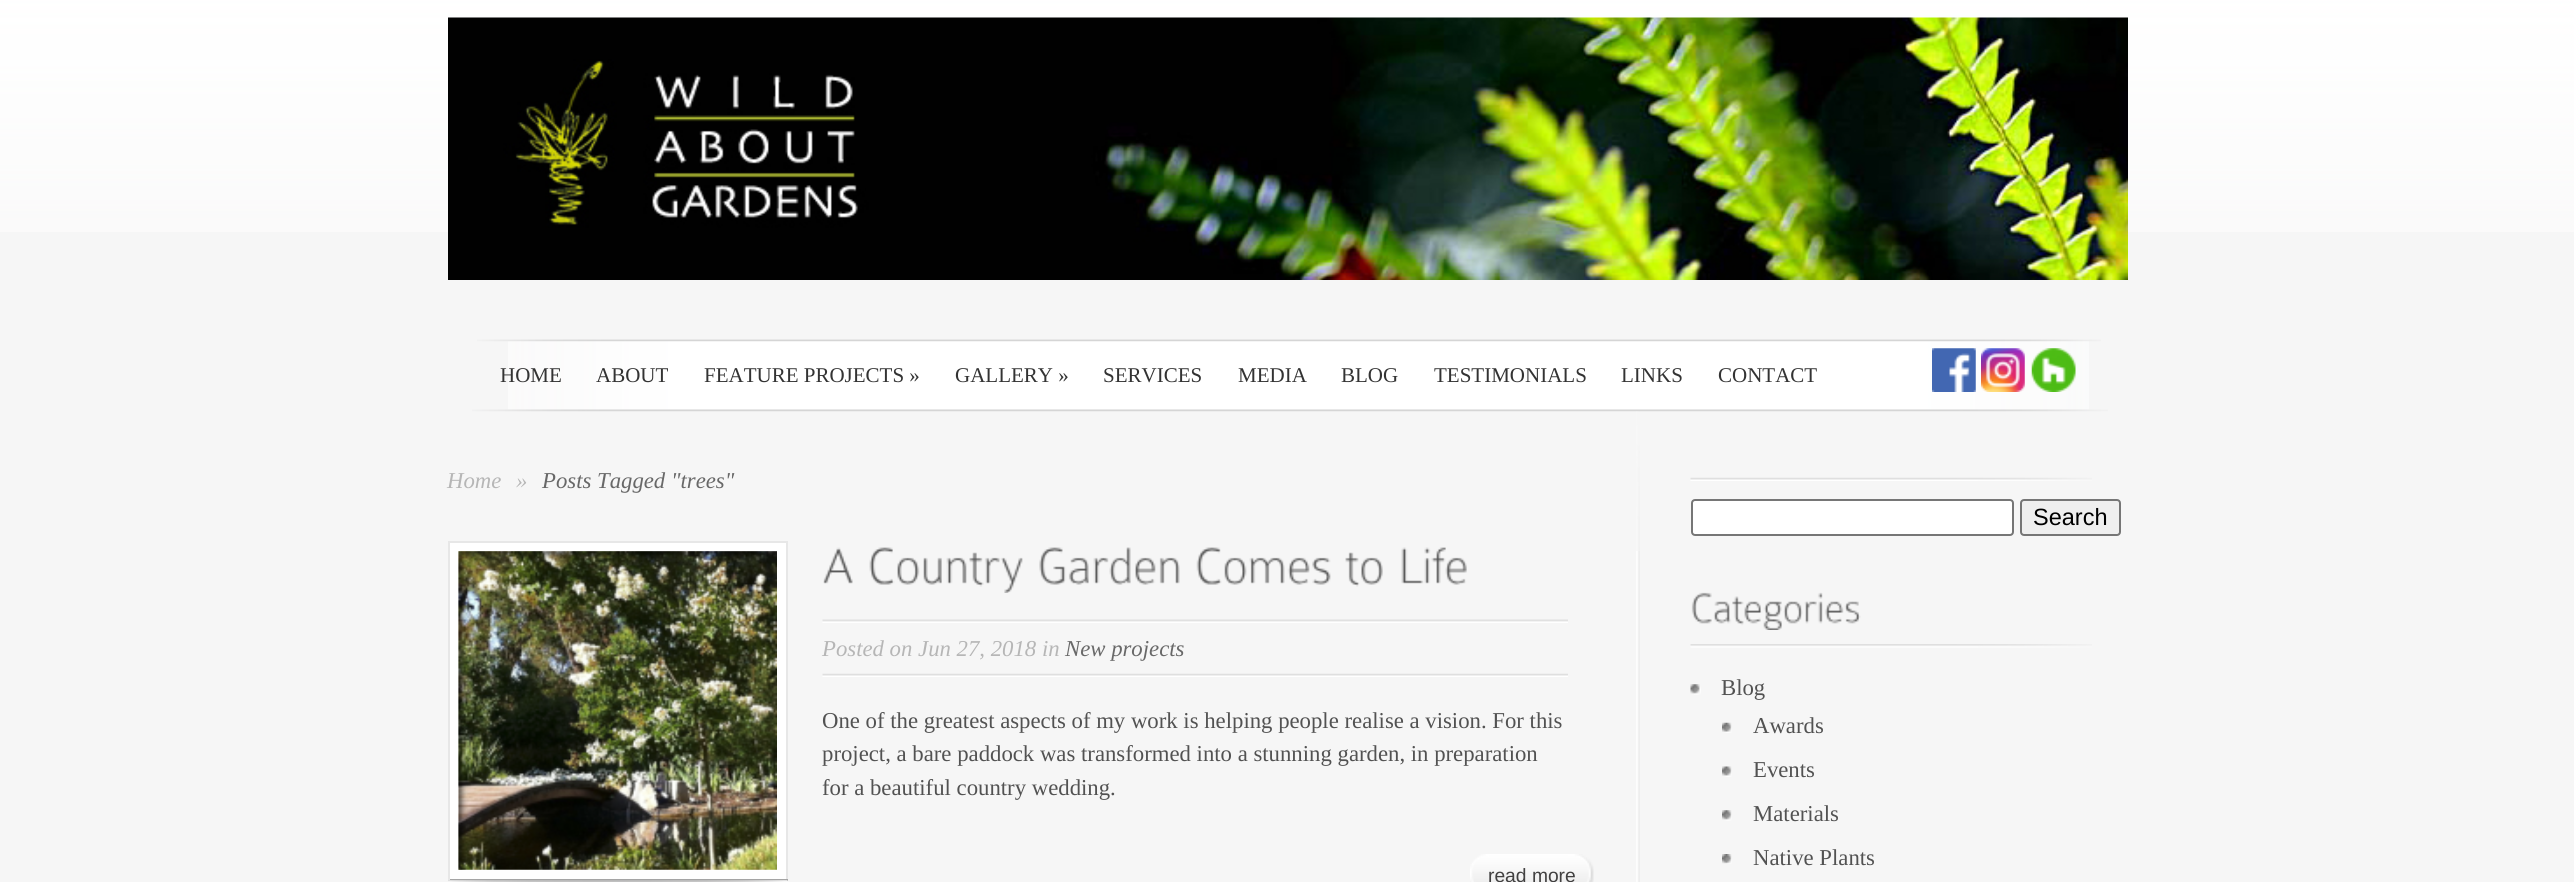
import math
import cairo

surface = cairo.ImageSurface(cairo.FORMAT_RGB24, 2574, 882)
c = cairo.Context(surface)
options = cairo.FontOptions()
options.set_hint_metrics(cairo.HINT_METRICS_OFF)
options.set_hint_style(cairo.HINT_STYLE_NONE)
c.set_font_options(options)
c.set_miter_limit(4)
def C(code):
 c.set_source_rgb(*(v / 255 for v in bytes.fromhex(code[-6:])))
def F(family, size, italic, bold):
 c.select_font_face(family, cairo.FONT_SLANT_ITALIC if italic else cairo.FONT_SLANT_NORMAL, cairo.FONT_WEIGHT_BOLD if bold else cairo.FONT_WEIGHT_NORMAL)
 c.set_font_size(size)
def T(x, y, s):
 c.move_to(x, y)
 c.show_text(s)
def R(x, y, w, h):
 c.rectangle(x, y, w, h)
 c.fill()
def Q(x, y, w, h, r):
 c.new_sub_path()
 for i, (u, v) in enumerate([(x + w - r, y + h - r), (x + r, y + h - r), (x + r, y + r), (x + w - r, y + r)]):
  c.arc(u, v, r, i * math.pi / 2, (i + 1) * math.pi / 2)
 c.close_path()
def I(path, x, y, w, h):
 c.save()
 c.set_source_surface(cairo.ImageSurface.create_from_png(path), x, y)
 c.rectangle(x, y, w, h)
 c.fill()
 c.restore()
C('f6f6f6')
c.paint()
I('1.png',0,0,2574,232)
I('2.png',448,17,1680,263)
I('3.png',508,339,1581,71)
I('4.png',477,339,1624,3)
I('5.png',1932,348,44,44)
I('6.png',1981,348,44,44)
I('7.png',2031,348,45,44)
F('Liberation Serif',21,0,0)
C('333333')
T(500,382,'HOME')
T(596,382,'ABOUT')
T(704,382,'FEATURE PROJECTS »')
T(955,382,'GALLERY »')
T(1103,382,'SERVICES')
T(1238,382,'MEDIA')
T(1341,382,'BLOG')
T(1434,382,'TESTIMONIALS')
T(1621,382,'LINKS')
T(1718,382,'CONTACT')
I('9.png',1636,411,4,471)
I('10.png',1636,411,4,140)
I('8.png',472,409,1636,3)
F('Liberation Serif',22.75,1,0)
C('b6b6b6')
T(447,488,'Home')
T(516,488,'»')
C('686868')
T(542,488,'Posts Tagged "trees"')
C('ffffff')
R(450,543,336,336)
C('e7e7e7')
R(448,541,340,2)
R(786,541,2,339)
C('a5a5a5')
R(448,879,340,2)
C('e7e7e7')
R(448,541,2,339)
I('11.png',458,551,319,319)
I('12.png',458,551,319,319)
I('13.png',448,880,340,2)
I('14.png',823,547,30,37)
I('15.png',869,547,154,46)
I('16.png',1039,547,141,38)
I('17.png',1196,547,135,38)
I('18.png',1345,552,38,35)
I('19.png',1401,547,66,38)
I('20.png',822,619,746,4)
C('b6b6b6')
T(822,656,'Posted on Jun 27, 2018 in')
C('686868')
T(1065,656,'New projects')
I('21.png',822,673,746,4)
F('Liberation Serif',22.75,0,0)
C('525252')
T(822,728,'One of the greatest aspects of my work is helping people realise a vision. For this')
T(822,761,'project, a bare paddock was transformed into a stunning garden, in preparation')
T(822,795,'for a beautiful country wedding.')
I('22.png',1470,854,98,28)
I('23.png',1568,854,26,28)
F('Liberation Sans',19.25,0,0)
C('414040')
T(1488,882,'read more')
I('24.png',1690,477,402,4)
C('ffffff')
Q(1692,500,321,35,3)
c.fill_preserve()
C('767676')
c.stroke()
C('efefef')
Q(2021,500,99,35,3)
c.fill_preserve()
C('767676')
c.stroke()
F('Liberation Sans',23.5,0,0)
C('000000')
T(2033,525,'Search')
I('25.png',1690,644,402,4)
I('26.png',1691,592,170,38)
I('27.png',1690,684,11,11)
F('Liberation Serif',22.75,0,0)
C('525252')
T(1721,695,'Blog')
I('28.png',1722,722,10,11)
T(1753,733,'Awards')
I('29.png',1722,766,10,11)
T(1753,777,'Events')
I('30.png',1722,810,10,11)
T(1753,821,'Materials')
I('31.png',1722,854,10,10)
T(1753,865,'Native Plants')
surface.write_to_png('o.png')
